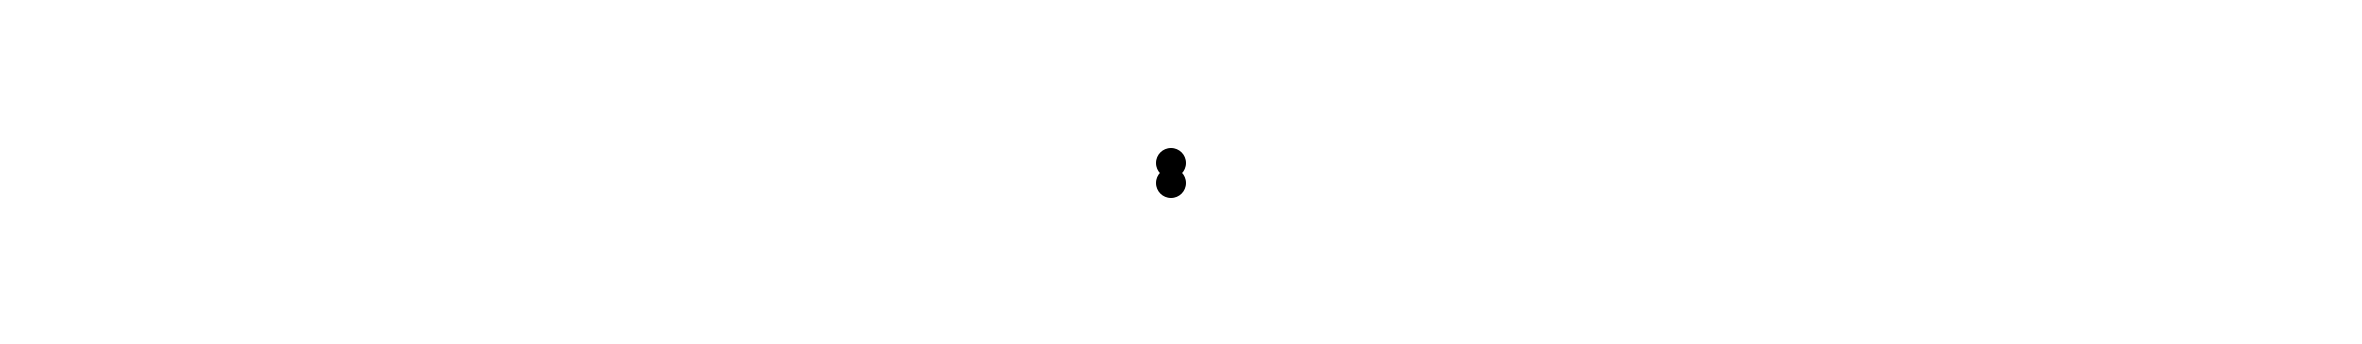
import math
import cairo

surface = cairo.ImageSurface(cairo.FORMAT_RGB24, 2362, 344)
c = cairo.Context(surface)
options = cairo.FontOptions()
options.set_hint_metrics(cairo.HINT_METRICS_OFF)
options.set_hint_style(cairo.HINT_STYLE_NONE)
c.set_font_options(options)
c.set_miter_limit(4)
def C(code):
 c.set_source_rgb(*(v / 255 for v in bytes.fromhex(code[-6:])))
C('ffffff')
c.paint()
C('000000')
c.arc(1171,163,15,0,2 * math.pi)
c.fill()
c.arc(1171,183,15,0,2 * math.pi)
c.fill()
surface.write_to_png('o.png')
